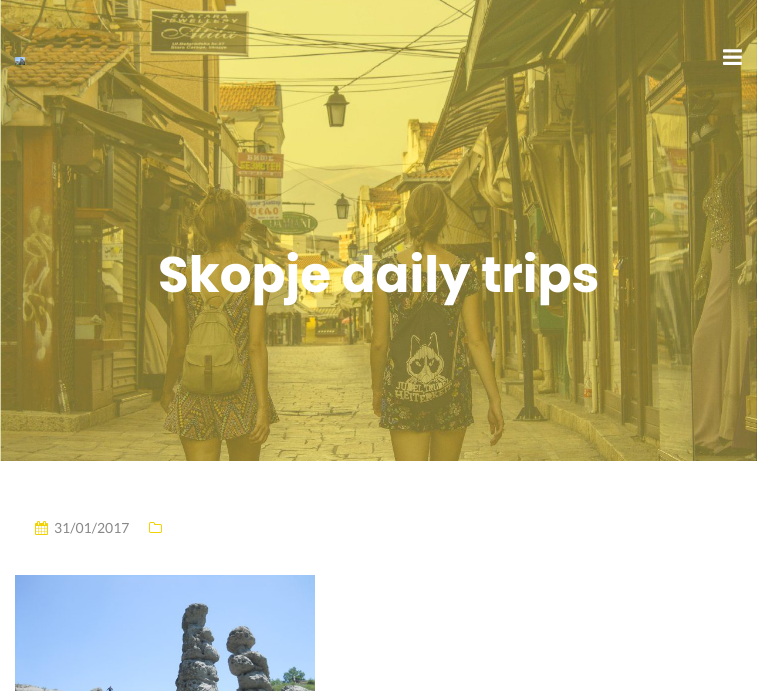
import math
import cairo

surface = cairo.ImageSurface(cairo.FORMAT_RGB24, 757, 691)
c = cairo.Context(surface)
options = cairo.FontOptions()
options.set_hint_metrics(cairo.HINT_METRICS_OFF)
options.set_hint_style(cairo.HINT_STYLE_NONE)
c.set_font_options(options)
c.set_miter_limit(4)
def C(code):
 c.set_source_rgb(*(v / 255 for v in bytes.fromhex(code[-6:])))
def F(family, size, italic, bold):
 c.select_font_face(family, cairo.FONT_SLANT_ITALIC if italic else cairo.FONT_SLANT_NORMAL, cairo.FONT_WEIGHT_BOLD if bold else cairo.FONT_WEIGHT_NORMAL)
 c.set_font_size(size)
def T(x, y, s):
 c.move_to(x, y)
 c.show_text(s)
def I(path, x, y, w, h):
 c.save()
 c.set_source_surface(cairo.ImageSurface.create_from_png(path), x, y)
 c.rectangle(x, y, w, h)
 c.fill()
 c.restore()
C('ffffff')
c.paint()
I('1.png',0,0,757,461)
I('2.png',15,57,10,8)
I('3.png',723,49,19,16)
F('Poppins',50,0,1)
C('ffffff')
T(158,292,'Skopje daily trips')
I('4.png',35,521,13,14)
F('Lato',14,0,0)
C('888888')
T(54,533,'31/01/2017')
I('5.png',149,522,13,11)
I('6.png',15,575,300,116)
surface.write_to_png('o.png')
